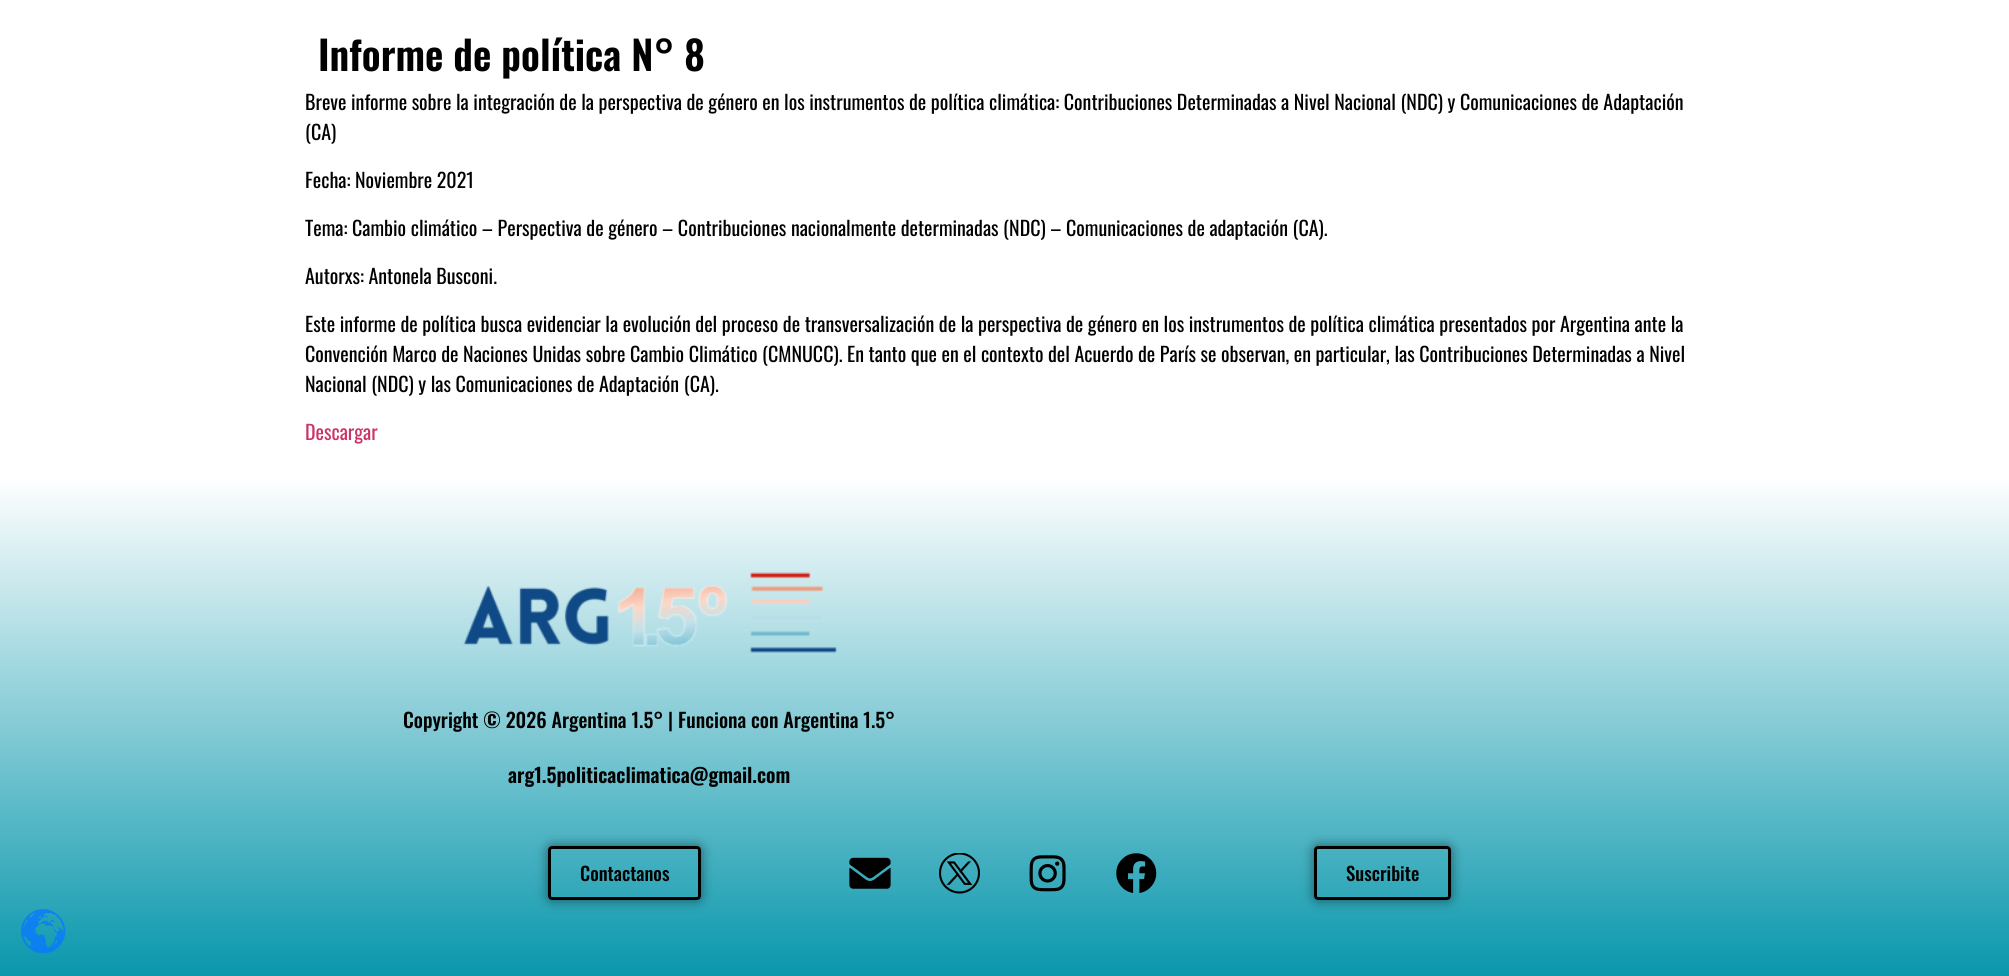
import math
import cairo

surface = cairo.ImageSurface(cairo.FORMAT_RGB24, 2009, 976)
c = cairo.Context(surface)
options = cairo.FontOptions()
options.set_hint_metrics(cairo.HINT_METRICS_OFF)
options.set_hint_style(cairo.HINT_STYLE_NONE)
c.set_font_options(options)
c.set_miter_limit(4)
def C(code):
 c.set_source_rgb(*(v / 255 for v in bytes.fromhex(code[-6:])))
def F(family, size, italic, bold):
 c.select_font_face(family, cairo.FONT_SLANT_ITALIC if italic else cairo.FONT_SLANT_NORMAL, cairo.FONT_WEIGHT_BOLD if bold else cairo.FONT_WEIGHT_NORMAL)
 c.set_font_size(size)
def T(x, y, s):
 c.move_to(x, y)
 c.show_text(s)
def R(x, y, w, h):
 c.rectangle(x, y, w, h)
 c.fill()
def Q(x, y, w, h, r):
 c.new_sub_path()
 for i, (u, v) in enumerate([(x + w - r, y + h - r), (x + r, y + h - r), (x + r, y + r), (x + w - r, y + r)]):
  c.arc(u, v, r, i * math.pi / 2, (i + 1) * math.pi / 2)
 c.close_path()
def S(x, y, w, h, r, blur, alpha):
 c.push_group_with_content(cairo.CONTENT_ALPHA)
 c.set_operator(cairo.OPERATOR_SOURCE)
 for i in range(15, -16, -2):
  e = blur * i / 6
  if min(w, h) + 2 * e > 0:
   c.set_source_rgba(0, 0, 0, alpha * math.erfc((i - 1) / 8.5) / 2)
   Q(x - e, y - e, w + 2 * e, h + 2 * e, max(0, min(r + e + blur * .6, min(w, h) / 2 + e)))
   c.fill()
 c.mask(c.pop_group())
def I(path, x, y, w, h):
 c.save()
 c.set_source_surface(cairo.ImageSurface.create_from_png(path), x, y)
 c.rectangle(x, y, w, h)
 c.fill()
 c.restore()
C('ffffff')
c.paint()
F('Oswald SemiBold',40,0,0)
C('000000')
T(318,71,'Informe de política N° 8')
F('Oswald',20,0,0)
T(305,110,'Breve informe sobre la integración de la perspectiva de género en los instrumentos de política climática: Contribuciones Determinadas a Nivel Nacional (NDC) y Comunicaciones de Adaptación')
T(305,140,'(CA)')
T(305,188,'Fecha: Noviembre 2021')
T(305,236,'Tema: Cambio climático – Perspectiva de género – Contribuciones nacionalmente determinadas (NDC) – Comunicaciones de adaptación (CA).')
T(305,284,'Autorxs: Antonela Busconi.')
T(305,332,'Este informe de política busca evidenciar la evolución del proceso de transversalización de la perspectiva de género en los instrumentos de política climática presentados por Argentina ante la')
T(305,362,'Convención Marco de Naciones Unidas sobre Cambio Climático (CMNUCC). En tanto que en el contexto del Acuerdo de París se observan, en particular, las Contribuciones Determinadas a Nivel')
T(305,392,'Nacional (NDC) y las Comunicaciones de Adaptación (CA).')
C('cc3366')
T(305,440,'Descargar')
gradient = cairo.LinearGradient(1005,476,1005,976)
gradient.add_color_stop_rgba(0,1,1,1,1)
gradient.add_color_stop_rgba(1,0.035,0.592,0.675,1)
c.set_source(gradient)
R(0,481,2009,495)
I('1.png',463,572,374,81)
F('Oswald Medium',20,0,0)
C('000000')
T(403,728,'Copyright © 2026 Argentina 1.5° | Funciona con Argentina 1.5°')
F('Oswald SemiBold',20,0,0)
T(508,783,'arg1.5politicaclimatica@gmail.com')
c.save()
c.set_fill_rule(cairo.FILL_RULE_EVEN_ODD)
c.new_path()
c.move_to(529,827)
c.line_to(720,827)
c.line_to(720,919)
c.line_to(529,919)
c.close_path()
c.move_to(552,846)
c.line_to(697,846)
c.curve_to(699,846,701,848,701,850)
c.line_to(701,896)
c.curve_to(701,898,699,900,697,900)
c.line_to(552,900)
c.curve_to(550,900,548,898,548,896)
c.line_to(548,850)
c.curve_to(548,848,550,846,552,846)
c.close_path()
c.clip()
C('000000')
S(548,846,153,54,4,6,.5)
c.restore()
Q(549.5,847.5,150,51,2.5)
c.set_line_width(3)
c.stroke()
F('Oswald Medium',18.75,0,0)
T(580,881,'Contactanos')
I('2.png',849,857,42,32)
I('3.png',939,853,41,41)
I('4.png',1029,855,37,37)
I('5.png',1116,853,41,40)
c.save()
c.set_fill_rule(cairo.FILL_RULE_EVEN_ODD)
c.new_path()
c.move_to(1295,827)
c.line_to(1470,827)
c.line_to(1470,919)
c.line_to(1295,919)
c.close_path()
c.move_to(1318,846)
c.line_to(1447,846)
c.curve_to(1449,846,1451,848,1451,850)
c.line_to(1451,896)
c.curve_to(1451,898,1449,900,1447,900)
c.line_to(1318,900)
c.curve_to(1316,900,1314,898,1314,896)
c.line_to(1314,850)
c.curve_to(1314,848,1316,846,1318,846)
c.close_path()
c.clip()
C('000000')
S(1314,846,137,54,4,6,.5)
c.restore()
Q(1315.5,847.5,134,51,2.5)
c.stroke()
T(1346,881,'Suscribite')
I('6.png',21,909,45,45)
surface.write_to_png('o.png')
